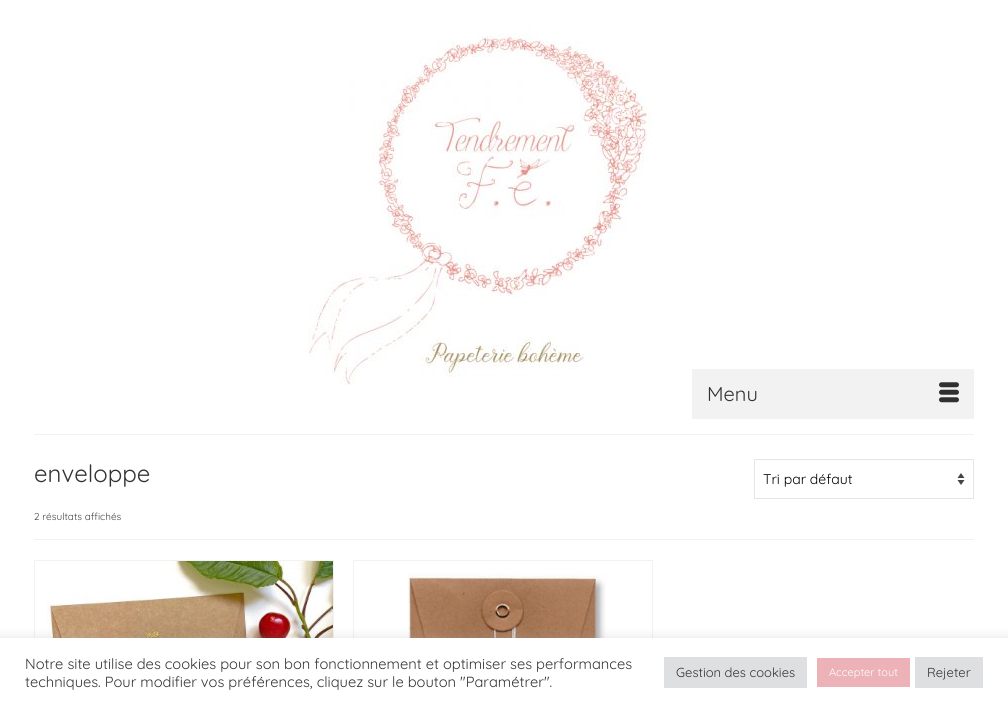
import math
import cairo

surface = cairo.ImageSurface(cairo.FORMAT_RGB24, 1008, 707)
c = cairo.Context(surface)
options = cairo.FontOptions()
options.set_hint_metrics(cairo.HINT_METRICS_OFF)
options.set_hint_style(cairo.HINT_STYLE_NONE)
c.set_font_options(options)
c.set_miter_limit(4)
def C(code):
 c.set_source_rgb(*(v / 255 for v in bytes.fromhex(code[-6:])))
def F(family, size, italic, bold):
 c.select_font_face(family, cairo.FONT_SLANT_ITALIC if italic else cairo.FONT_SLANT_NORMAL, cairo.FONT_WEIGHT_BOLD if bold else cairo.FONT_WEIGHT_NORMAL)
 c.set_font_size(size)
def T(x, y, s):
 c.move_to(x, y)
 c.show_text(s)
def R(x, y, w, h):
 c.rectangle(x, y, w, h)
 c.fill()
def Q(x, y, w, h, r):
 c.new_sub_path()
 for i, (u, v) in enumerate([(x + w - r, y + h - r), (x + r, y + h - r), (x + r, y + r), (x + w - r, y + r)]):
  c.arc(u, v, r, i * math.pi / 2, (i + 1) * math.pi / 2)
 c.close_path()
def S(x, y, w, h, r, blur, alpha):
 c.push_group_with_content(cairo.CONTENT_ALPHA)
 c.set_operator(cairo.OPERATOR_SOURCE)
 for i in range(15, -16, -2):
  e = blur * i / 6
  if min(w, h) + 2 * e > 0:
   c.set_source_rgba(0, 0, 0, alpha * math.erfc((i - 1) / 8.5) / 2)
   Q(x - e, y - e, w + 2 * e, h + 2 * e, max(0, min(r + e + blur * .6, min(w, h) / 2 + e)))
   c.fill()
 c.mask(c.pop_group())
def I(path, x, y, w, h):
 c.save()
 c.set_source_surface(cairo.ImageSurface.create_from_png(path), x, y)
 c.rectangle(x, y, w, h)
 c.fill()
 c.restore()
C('ffffff')
c.paint()
I('1.png',308,25,344,360)
C('f2f2f2')
R(692,369,282,50)
F('Quicksand',20,0,0)
C('333333')
T(707,401,'Menu')
I('2.png',939,382,20,21)
C('f2f2f2')
R(34,434,940,1)
R(34,539,940,1)
F('Quicksand',24,0,0)
C('333333')
T(34,482,'enveloppe')
F('Quicksand',10,0,0)
C('444444')
T(34,520,'2 résultats affichés')
c.new_path()
c.move_to(957.5,478)
c.line_to(961,473)
c.line_to(964.5,478)
c.close_path()
c.move_to(964.5,480)
c.line_to(961,485)
c.line_to(957.5,480)
c.close_path()
c.fill()
c.rectangle(754.5,459.5,219,39)
C('e6e6e6')
c.set_line_width(1)
c.stroke()
F('Quicksand',14,0,0)
C('000000')
T(763,484,'Tri par défaut')
c.rectangle(34.5,560.5,299,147)
C('f2f2f2')
c.stroke()
I('3.png',47,561,286,77)
c.rectangle(353.5,560.5,299,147)
c.stroke()
I('4.png',408,573,198,65)
C('acabab')
S(0,637,1008,69,0,5,.3)
C('ffffff')
R(0,638,1008,69)
F('Quicksand',14.65,0,0)
C('333333')
T(25,669,'Notre site utilise des cookies pour son bon fonctionnement et optimiser ses performances')
T(25,687,'techniques. Pour modifier vos préférences, cliquez sur le bouton "Paramétrer".')
C('dedfe0')
R(664,657,143,31)
F('Quicksand',13,0,0)
C('333333')
T(676,677,'Gestion des cookies')
C('ecb2b7')
R(817,658,93,29)
F('Quicksand',11,0,0)
C('ffffff')
T(829,676,'Accepter tout')
C('dedfe0')
R(915,657,68,31)
F('Quicksand',13,0,0)
C('333333')
T(927,677,'Rejeter')
surface.write_to_png('o.png')
